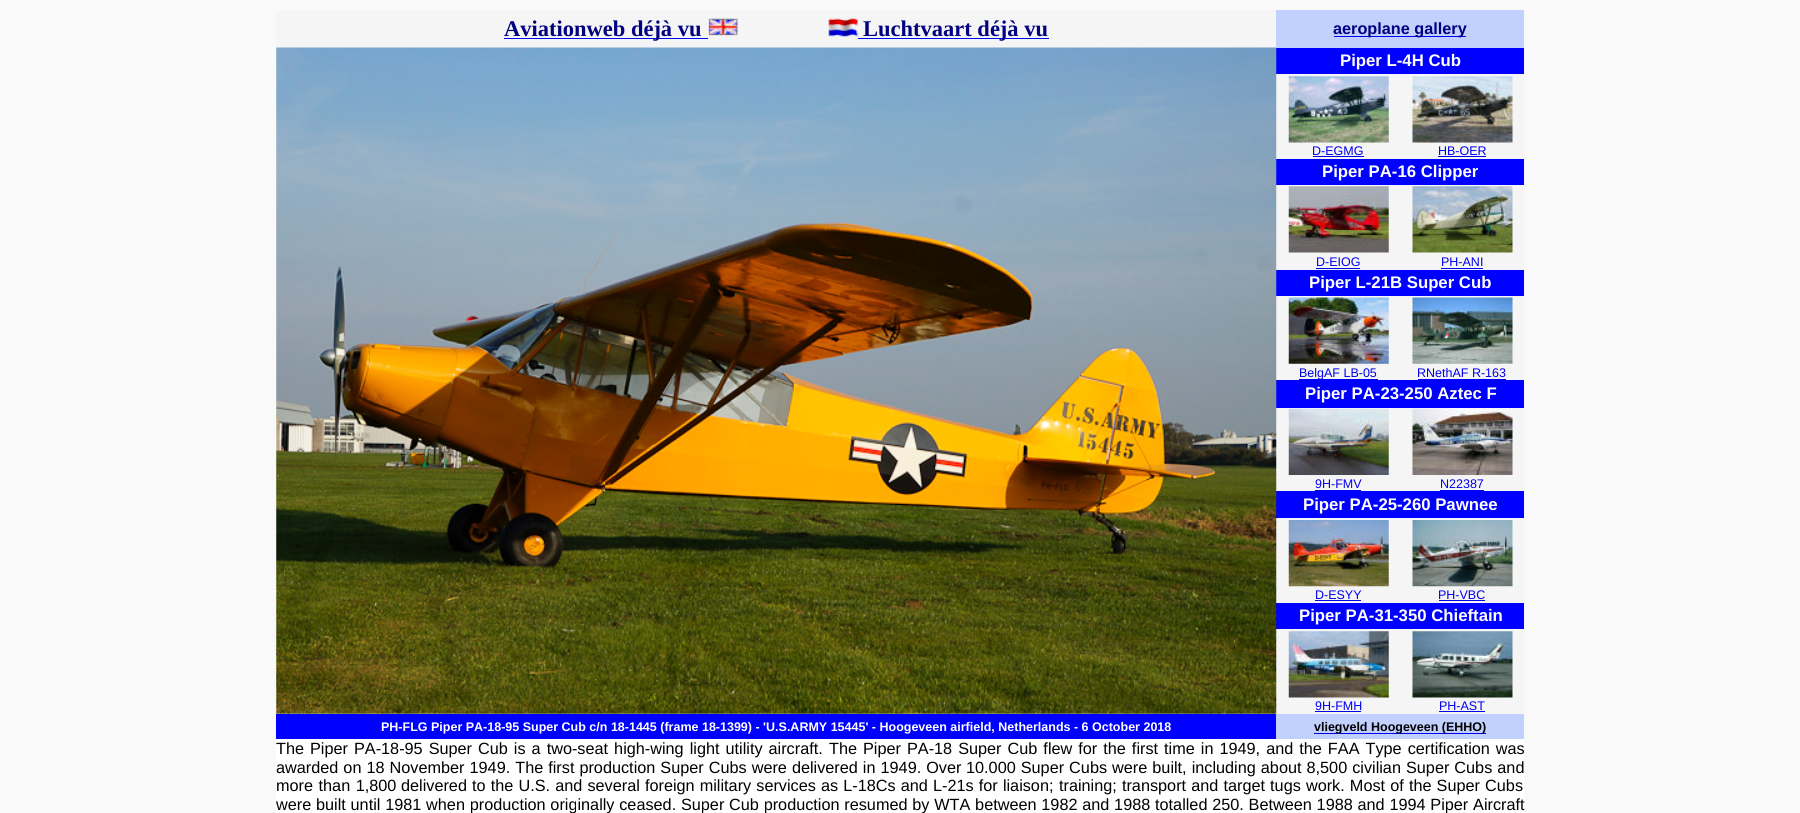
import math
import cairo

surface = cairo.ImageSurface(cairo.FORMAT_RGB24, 1800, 813)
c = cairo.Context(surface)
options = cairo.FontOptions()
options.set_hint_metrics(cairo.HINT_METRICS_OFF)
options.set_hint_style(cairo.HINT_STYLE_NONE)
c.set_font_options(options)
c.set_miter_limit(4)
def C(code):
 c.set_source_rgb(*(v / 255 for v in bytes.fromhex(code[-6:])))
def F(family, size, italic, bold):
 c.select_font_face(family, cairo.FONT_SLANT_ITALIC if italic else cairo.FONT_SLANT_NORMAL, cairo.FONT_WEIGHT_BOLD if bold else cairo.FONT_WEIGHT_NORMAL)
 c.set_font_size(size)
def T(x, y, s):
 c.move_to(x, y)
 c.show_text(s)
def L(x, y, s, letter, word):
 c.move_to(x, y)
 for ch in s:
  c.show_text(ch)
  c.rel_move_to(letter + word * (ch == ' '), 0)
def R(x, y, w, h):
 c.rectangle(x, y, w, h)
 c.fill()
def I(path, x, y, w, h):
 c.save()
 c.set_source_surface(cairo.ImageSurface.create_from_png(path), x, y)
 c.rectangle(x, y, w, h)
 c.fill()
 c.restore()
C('f9f9f9')
c.paint()
C('f5f5f5')
R(276,10,1000,704)
C('0000ee')
R(504,38,204,1)
F('Liberation Serif',22.5,0,1)
C('000080')
T(504,36,'Aviationweb déjà vu')
I('1.png',707,18,31,18)
I('2.png',828,18,30,19)
C('0000ee')
R(858,38,191,1)
C('000080')
T(863,36,'Luchtvaart déjà vu')
C('c2d0fe')
R(1276,10,248,38)
C('0000ee')
R(1334,36,132,1)
F('Liberation Sans',16.25,0,1)
C('000080')
T(1333,34,'aeroplane gallery')
C('0000ff')
R(1276,48,248,26)
C('f5f5f5')
R(1276,74,248,70)
R(1276,144,248,15)
C('0000ff')
R(1276,159,248,26)
C('f5f5f5')
R(1276,185,248,70)
R(1276,255,248,15)
C('0000ff')
R(1276,270,248,26)
C('f5f5f5')
R(1276,296,248,70)
R(1276,366,248,14)
C('0000ff')
R(1276,380,248,28)
C('f5f5f5')
R(1276,408,248,70)
R(1276,478,248,13)
C('0000ff')
R(1276,491,248,27)
C('f5f5f5')
R(1276,518,248,70)
R(1276,588,248,15)
C('0000ff')
R(1276,603,248,26)
C('f5f5f5')
R(1276,629,248,70)
R(1276,699,248,15)
I('3.png',276,47,1001,667)
F('Liberation Sans',16.75,0,1)
C('ffffff')
T(1340,66,'Piper L-4H Cub')
I('4.png',1288,76,101,67)
I('5.png',1412,76,101,67)
F('Liberation Sans',12.5,0,0)
C('0000ee')
T(1312,155,'D-EGMG')
R(1313,156,51,1)
T(1438,155,'HB-OER')
R(1438,156,48,1)
F('Liberation Sans',16.75,0,1)
C('ffffff')
T(1322,177,'Piper PA-16 Clipper')
I('6.png',1288,186,101,67)
I('7.png',1412,186,101,67)
F('Liberation Sans',12.5,0,0)
C('0000ee')
T(1316,266,'D-EIOG')
R(1316,268,44,1)
T(1441,266,'PH-ANI')
R(1441,268,42,1)
F('Liberation Sans',16.75,0,1)
C('ffffff')
T(1309,288,'Piper L-21B Super Cub')
I('8.png',1288,297,101,67)
I('9.png',1412,297,101,67)
C('0000ee')
R(1299,379,79,1)
F('Liberation Sans',12.5,0,0)
T(1299,377,'BelgAF LB-05')
T(1417,377,'RNethAF R-163')
R(1418,379,88,1)
F('Liberation Sans',16.75,0,1)
C('ffffff')
T(1305,399,'Piper PA-23-250 Aztec F')
I('10.png',1288,408,101,67)
I('11.png',1412,408,101,67)
F('Liberation Sans',12.5,0,0)
C('0000ee')
T(1315,488,'9H-FMV')
R(1315,490,46,1)
T(1440,488,'N22387')
R(1440,490,44,1)
F('Liberation Sans',16.75,0,1)
C('ffffff')
T(1303,510,'Piper PA-25-260 Pawnee')
I('12.png',1288,520,101,67)
I('13.png',1412,520,101,67)
F('Liberation Sans',12.5,0,0)
C('0000ee')
T(1315,599,'D-ESYY')
R(1315,600,46,1)
T(1438,599,'PH-VBC')
R(1439,600,46,1)
F('Liberation Sans',16.75,0,1)
C('ffffff')
T(1299,621,'Piper PA-31-350 Chieftain')
I('14.png',1288,631,101,67)
I('15.png',1412,631,101,67)
F('Liberation Sans',12.5,0,0)
C('0000ee')
T(1315,710,'9H-FMH')
R(1315,711,46,1)
T(1439,710,'PH-AST')
R(1439,711,46,1)
C('0000ff')
R(276,714,1000,25)
F('Liberation Sans',12.5,0,1)
C('ffffff')
T(381,731,'PH-FLG Piper PA-18-95 Super Cub c/n 18-1445 (frame 18-1399) - \'U.S.ARMY 15445\' - Hoogeveen airfield, Netherlands - 6 October 2018')
C('c2d0fe')
R(1276,714,248,25)
C('0000ee')
R(1314,733,172,1)
C('000000')
T(1314,731,'vliegveld Hoogeveen (EHHO)')
C('ffffff')
R(276,739,1248,74)
F('Liberation Sans',16.25,0,0)
C('000000')
L(276,754,'The Piper PA-18-95 Super Cub is a two-seat high-wing light utility aircraft.',0,1.5)
L(829,754,'The Piper PA-18 Super Cub flew for the first time in 1949, and the FAA Type certification was',0,1.5)
L(276,773,'awarded on 18 November 1949. The first production Super Cubs were delivered in 1949. Over',0,.5)
L(966,773,'10.000 Super Cubs were built, including about 8,500 civilian Super Cubs and',0,.5)
L(276,791,'more than 1,800',0,1)
L(401,791,'delivered to the U.S. and several foreign military services as L-18Cs and L-21s for liaison;',0,.6)
L(1059,791,'training; transport and target tugs work. Most of the Super Cubs',0,.6)
L(276,810,'were built until 1981 when production originally ceased. Super Cub production resumed by WTA between 1982 and 1988 totalled 250. Between 1988 and 1994 Piper Aircraft',0,.25)
surface.write_to_png('o.png')
